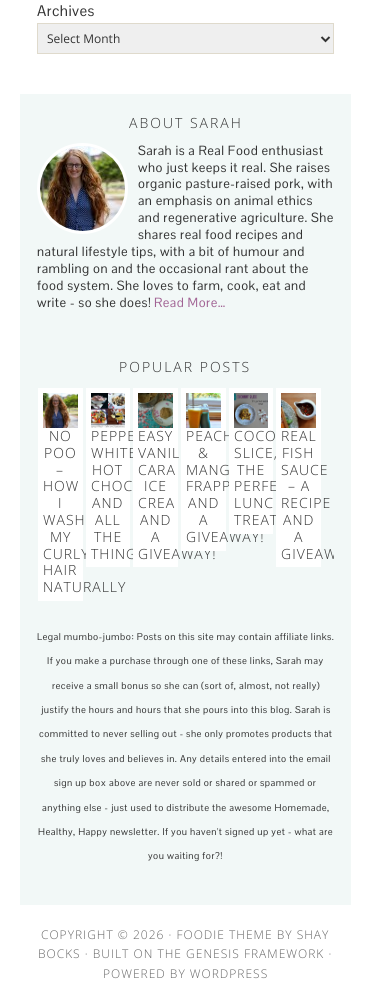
import math
import cairo

surface = cairo.ImageSurface(cairo.FORMAT_RGB24, 371, 1003)
c = cairo.Context(surface)
options = cairo.FontOptions()
options.set_hint_metrics(cairo.HINT_METRICS_OFF)
options.set_hint_style(cairo.HINT_STYLE_NONE)
c.set_font_options(options)
c.set_miter_limit(4)
def C(code):
 c.set_source_rgb(*(v / 255 for v in bytes.fromhex(code[-6:])))
def F(family, size, italic, bold):
 c.select_font_face(family, cairo.FONT_SLANT_ITALIC if italic else cairo.FONT_SLANT_NORMAL, cairo.FONT_WEIGHT_BOLD if bold else cairo.FONT_WEIGHT_NORMAL)
 c.set_font_size(size)
def T(x, y, s):
 c.move_to(x, y)
 c.show_text(s)
def L(x, y, s, letter, word):
 c.move_to(x, y)
 for ch in s:
  c.show_text(ch)
  c.rel_move_to(letter + word * (ch == ' '), 0)
def R(x, y, w, h):
 c.rectangle(x, y, w, h)
 c.fill()
def I(path, x, y, w, h):
 c.save()
 c.set_source_surface(cairo.ImageSurface.create_from_png(path), x, y)
 c.rectangle(x, y, w, h)
 c.fill()
 c.restore()
C('ffffff')
c.paint()
F('Pontano Sans',15,0,0)
C('333333')
L(37,16,'Archives',.5,0)
C('efefef')
c.rectangle(37.5,23.5,296,30)
c.fill_preserve()
C('dfdacc')
c.set_line_width(1)
c.stroke()
c.new_path()
c.move_to(321.5,37)
c.line_to(325.5,41)
c.line_to(329.5,37)
C('333333')
c.set_line_width(2)
c.stroke()
F('Open Sans',12,0,0)
T(47,43,'Select Month')
C('f2f8f7')
R(20,94,331,811)
F('Open Sans Light',14,0,0)
C('333333')
L(129,128,'ABOUT SARAH',2,0)
c.new_path()
c.arc(82.5,188.5,44,0,2 * math.pi)
C('ffffff')
c.set_line_width(3)
c.stroke()
I('1.png',40,146,85,85)
F('Pontano Sans',13,0,0)
C('333333')
L(138,155,'Sarah is a Real Food enthusiast',.5,0)
L(138,172,'who just keeps it real. She raises',.5,0)
L(138,188,'organic pasture-raised pork, with',.5,0)
L(138,205,'an emphasis on animal ethics',.5,0)
L(138,222,'and regenerative agriculture. She',.5,0)
L(138,239,'shares real food recipes and',.5,0)
L(37,256,'natural lifestyle tips, with a bit of humour and',.5,0)
L(37,273,'rambling on and the occasional rant about the',.5,0)
L(37,290,'food system. She loves to farm, cook, eat and',.5,0)
L(37,307,'write - so she does!',.5,0)
C('a16394')
L(154,307,'Read More…',.5,0)
F('Open Sans Light',14,0,0)
C('333333')
L(119,372,'POPULAR POSTS',2,0)
C('ffffff')
R(38,388,45,213)
I('2.png',43,393,35,35)
C('333333')
L(49,441,'NO',1,0)
L(44,458,'POO',1,0)
L(56,475,'–',1,0)
L(43,491,'HOW',1,0)
L(58,508,'I',1,0)
L(43,525,'WASH',1,0)
L(50,542,'MY',1,0)
L(43,559,'CURLY',1,0)
L(43,575,'HAIR',1,0)
L(43,592,'NATURALLY',1,0)
C('ffffff')
R(86,388,44,179)
C('333333')
L(91,441,'PEPPE',1,0)
L(91,458,'WHITE',1,0)
L(91,559,'THING',1,0)
C('ffffff')
R(133,388,45,179)
I('3.png',138,393,35,35)
C('333333')
L(138,441,'EASY',1,0)
L(138,458,'VANIL',1,0)
L(138,475,'CARA',1,0)
L(144,491,'ICE',1,0)
L(138,508,'CREA',1,0)
L(140,525,'AND',1,0)
L(151,542,'A',1,0)
L(138,559,'GIVEAWAY!',1,0)
C('ffffff')
R(181,388,45,163)
I('4.png',186,393,35,35)
C('333333')
L(186,441,'PEACH',1,0)
L(198,458,'&',1,0)
L(186,475,'MANG',1,0)
L(186,491,'FRAPP',1,0)
L(188,508,'AND',1,0)
L(199,525,'A',1,0)
L(186,542,'GIVEAWAY!',1,0)
I('5.png',91,393,34,35)
L(92,475,'HOT',1,0)
L(91,491,'CHOC',1,0)
L(92,508,'AND',1,0)
L(95,525,'ALL',1,0)
L(94,542,'THE',1,0)
C('ffffff')
R(229,388,44,146)
I('6.png',234,393,34,35)
C('333333')
L(234,441,'COCO',1,0)
L(234,458,'SLICE,',1,0)
L(237,475,'THE',1,0)
L(234,491,'PERFE',1,0)
L(234,508,'LUNC',1,0)
L(234,525,'TREAT',1,0)
C('ffffff')
R(276,388,45,179)
I('7.png',281,393,35,35)
C('333333')
L(281,441,'REAL',1,0)
L(282,458,'FISH',1,0)
L(281,475,'SAUCE',1,0)
L(288,491,'– A',1,0)
L(281,508,'RECIPE',1,0)
L(283,525,'AND',1,0)
L(294,542,'A',1,0)
c.save()
c.rectangle(37,114,297,775)
c.clip()
L(281,559,'GIVEAW',1,0)
c.restore()
F('Pontano Sans',9.6,0,0)
L(37,640,'Legal mumbo-jumbo: Posts on this site may contain affiliate links.',.5,0)
L(47,664,'If you make a purchase through one of these links, Sarah may',.5,0)
L(52,689,'receive a small bonus so she can (sort of, almost, not really)',.5,0)
L(41,713,'justify the hours and hours that she pours into this blog. Sarah is',.5,0)
L(39,737,'committed to never selling out - she only promotes products that',.5,0)
L(41,762,'she truly loves and believes in. Any details entered into the email',.5,0)
L(54,786,'sign up box above are never sold or shared or spammed or',.5,0)
L(42,811,'anything else - just used to distribute the awesome Homemade,',.5,0)
L(38,835,'Healthy, Happy newsletter. If you haven\'t signed up yet - what are',.5,0)
L(148,859,'you waiting for?!',.5,0)
F('Open Sans Light',12,0,0)
C('666666')
L(41,939,'COPYRIGHT © 2026 · FOODIE THEME BY SHAY',1,0)
L(38,958,'BOCKS · BUILT ON THE GENESIS FRAMEWORK ·',1,0)
L(103,978,'POWERED BY WORDPRESS',1,0)
surface.write_to_png('o.png')
